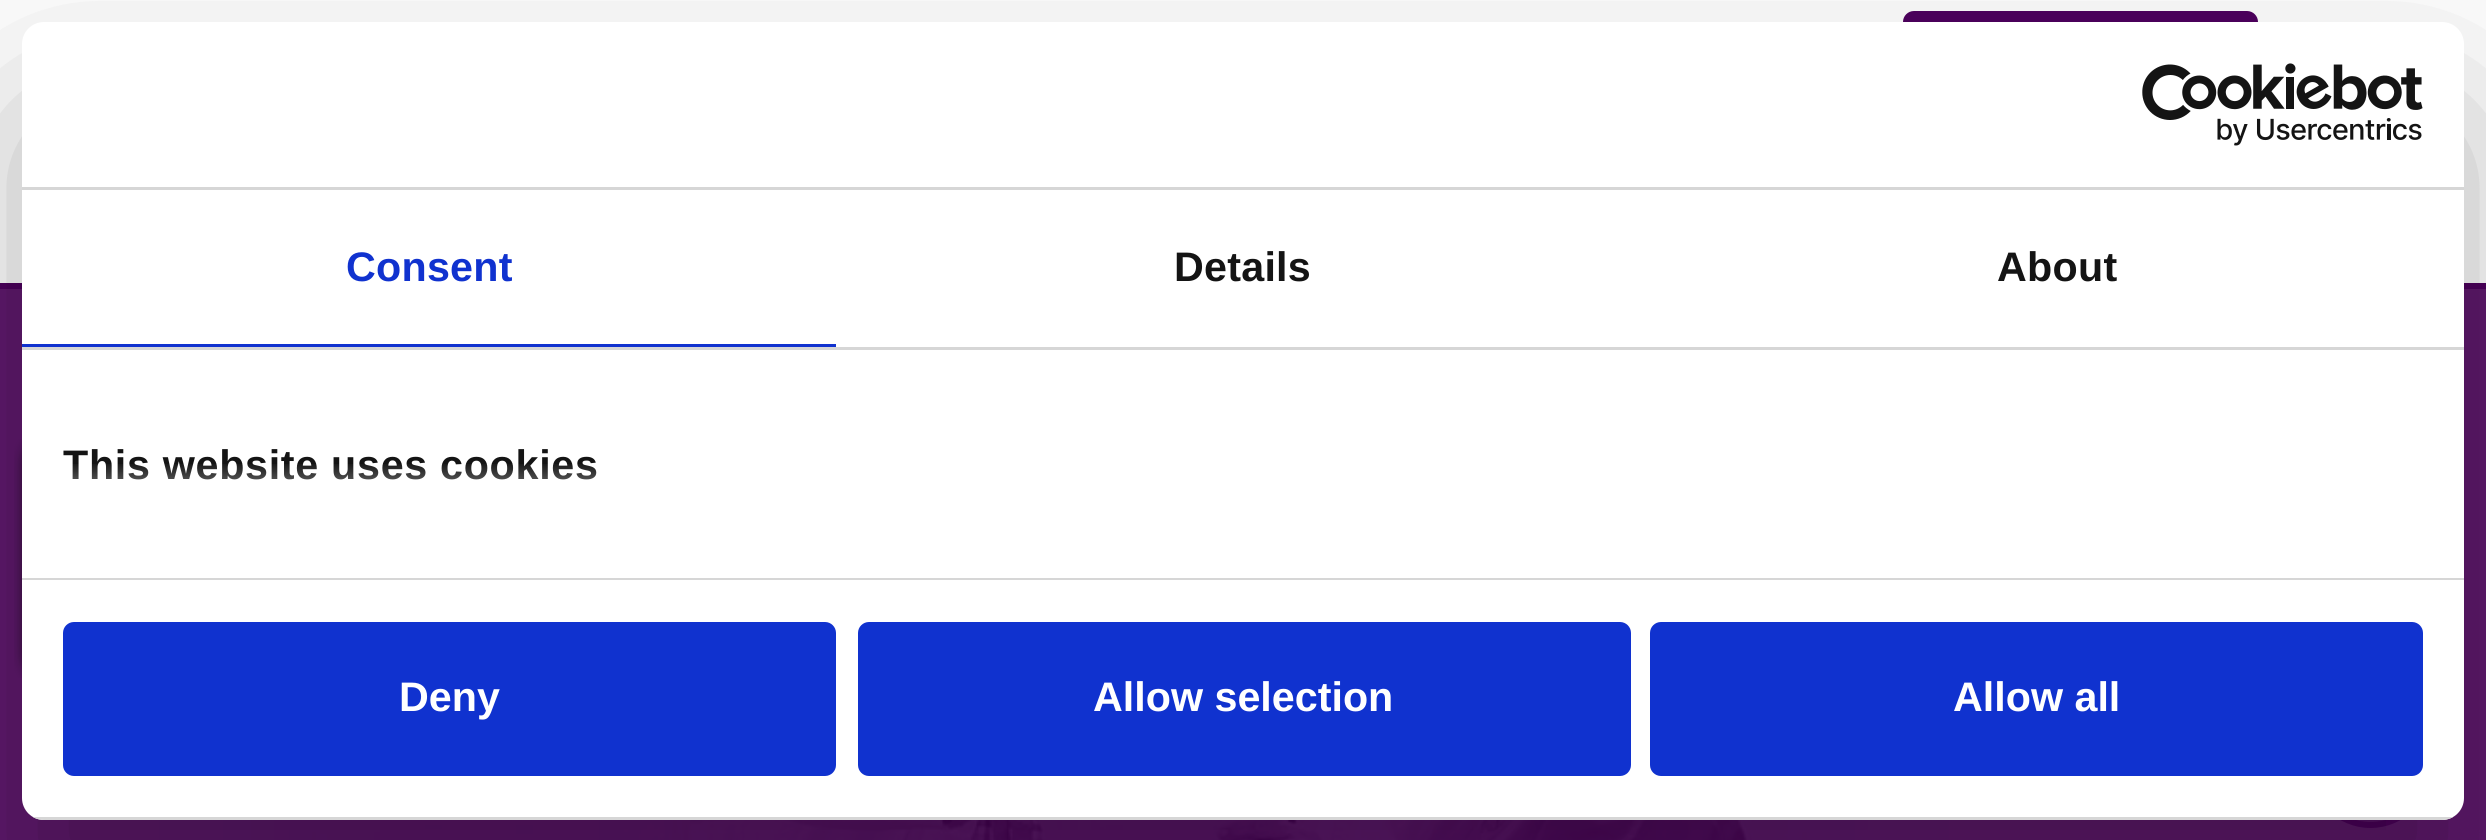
import math
import cairo

surface = cairo.ImageSurface(cairo.FORMAT_RGB24, 2486, 840)
c = cairo.Context(surface)
options = cairo.FontOptions()
options.set_hint_metrics(cairo.HINT_METRICS_OFF)
options.set_hint_style(cairo.HINT_STYLE_NONE)
c.set_font_options(options)
c.set_miter_limit(4)
def C(code):
 c.set_source_rgb(*(v / 255 for v in bytes.fromhex(code[-6:])))
def F(family, size, italic, bold):
 c.select_font_face(family, cairo.FONT_SLANT_ITALIC if italic else cairo.FONT_SLANT_NORMAL, cairo.FONT_WEIGHT_BOLD if bold else cairo.FONT_WEIGHT_NORMAL)
 c.set_font_size(size)
def T(x, y, s):
 c.move_to(x, y)
 c.show_text(s)
def L(x, y, s, letter, word):
 c.move_to(x, y)
 for ch in s:
  c.show_text(ch)
  c.rel_move_to(letter + word * (ch == ' '), 0)
def R(x, y, w, h):
 c.rectangle(x, y, w, h)
 c.fill()
def Q(x, y, w, h, r):
 c.new_sub_path()
 for i, (u, v) in enumerate([(x + w - r, y + h - r), (x + r, y + h - r), (x + r, y + r), (x + w - r, y + r)]):
  c.arc(u, v, r, i * math.pi / 2, (i + 1) * math.pi / 2)
 c.close_path()
def S(x, y, w, h, r, blur, alpha):
 c.push_group_with_content(cairo.CONTENT_ALPHA)
 c.set_operator(cairo.OPERATOR_SOURCE)
 for i in range(15, -16, -2):
  e = blur * i / 6
  if min(w, h) + 2 * e > 0:
   c.set_source_rgba(0, 0, 0, alpha * math.erfc((i - 1) / 8.5) / 2)
   Q(x - e, y - e, w + 2 * e, h + 2 * e, max(0, min(r + e + blur * .6, min(w, h) / 2 + e)))
   c.fill()
 c.mask(c.pop_group())
def I(path, x, y, w, h):
 c.save()
 c.set_source_surface(cairo.ImageSurface.create_from_png(path), x, y)
 c.rectangle(x, y, w, h)
 c.fill()
 c.restore()
C('60196e')
c.paint()
C('ffffff')
R(0,0,2486,283)
C('4e005e')
R(0,283,2486,6)
Q(1903,11,355,135,11)
c.fill()
I('1.png',14,439,8,239)
I('2.png',159,820,1790,20)
C('5a1269')
c.arc(2370.5,767.5,57.5,0,2 * math.pi)
c.fill_preserve()
C('4e005e')
c.set_line_width(6)
c.stroke()
C('000000')
S(22,110,2442,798,22,93.5,.3)
C('ffffff')
Q(22,22,2442,798,22)
c.fill()
C('d6d6d6')
R(22,187,2442,3)
I('3.png',2142,63,281,83)
R(22,347,2442,3)
C('1032cf')
R(22,344,814,3)
F('Liberation Sans',41.25,0,1)
L(346,281,'Consent',.25,0)
C('141414')
L(1174,281,'Details',.25,0)
L(1997,281,'About',.25,0)
C('d6d6d6')
R(22,578,2442,2)
C('141414')
L(63,479,'This website uses cookies',.7,0)
gradient = cairo.LinearGradient(1225,578,1225,462)
gradient.add_color_stop_rgba(0,1,1,1,1)
gradient.add_color_stop_rgba(.5,1,1,1,.8)
gradient.add_color_stop_rgba(1,1,1,1,0)
c.set_source(gradient)
R(72,464,525,16)
c.save()
Q(22,22,2442,798,22)
c.clip()
C('d6d6d6')
R(33,817,2420,3)
c.restore()
C('1032cf')
Q(66,625,767,148,8)
c.fill_preserve()
c.stroke()
C('ffffff')
T(399,711,'Deny')
C('1032cf')
Q(861,625,767,148,8)
c.fill_preserve()
c.stroke()
C('ffffff')
T(1093,711,'Allow selection')
C('1032cf')
Q(1653,625,767,148,8)
c.fill_preserve()
c.stroke()
C('ffffff')
T(1953,711,'Allow all')
surface.write_to_png('o.png')
